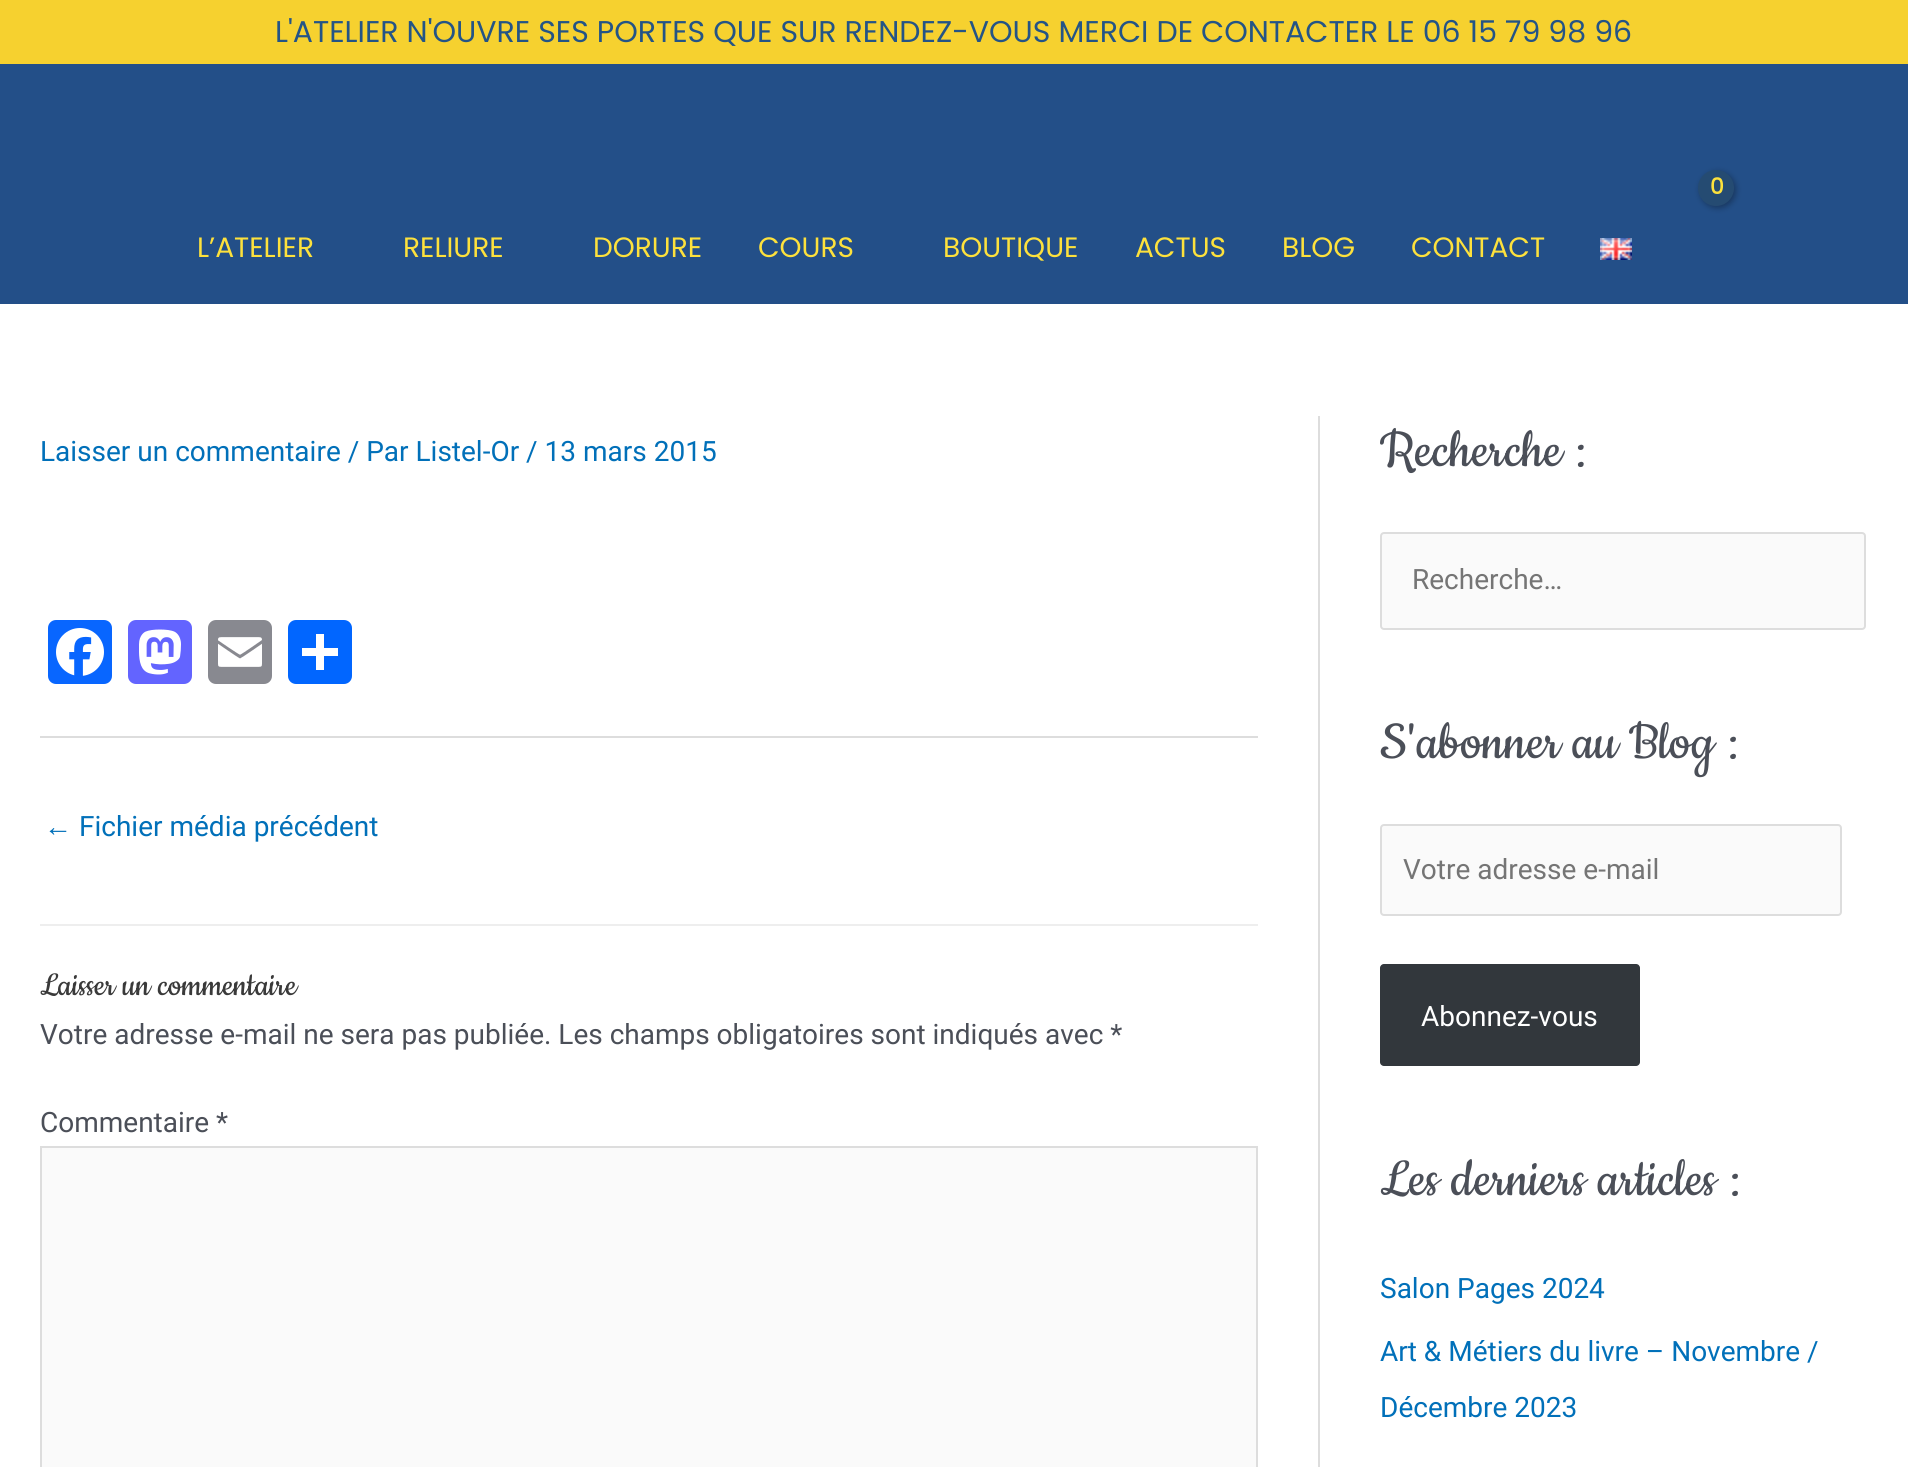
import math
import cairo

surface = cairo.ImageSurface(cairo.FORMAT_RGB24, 1908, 1467)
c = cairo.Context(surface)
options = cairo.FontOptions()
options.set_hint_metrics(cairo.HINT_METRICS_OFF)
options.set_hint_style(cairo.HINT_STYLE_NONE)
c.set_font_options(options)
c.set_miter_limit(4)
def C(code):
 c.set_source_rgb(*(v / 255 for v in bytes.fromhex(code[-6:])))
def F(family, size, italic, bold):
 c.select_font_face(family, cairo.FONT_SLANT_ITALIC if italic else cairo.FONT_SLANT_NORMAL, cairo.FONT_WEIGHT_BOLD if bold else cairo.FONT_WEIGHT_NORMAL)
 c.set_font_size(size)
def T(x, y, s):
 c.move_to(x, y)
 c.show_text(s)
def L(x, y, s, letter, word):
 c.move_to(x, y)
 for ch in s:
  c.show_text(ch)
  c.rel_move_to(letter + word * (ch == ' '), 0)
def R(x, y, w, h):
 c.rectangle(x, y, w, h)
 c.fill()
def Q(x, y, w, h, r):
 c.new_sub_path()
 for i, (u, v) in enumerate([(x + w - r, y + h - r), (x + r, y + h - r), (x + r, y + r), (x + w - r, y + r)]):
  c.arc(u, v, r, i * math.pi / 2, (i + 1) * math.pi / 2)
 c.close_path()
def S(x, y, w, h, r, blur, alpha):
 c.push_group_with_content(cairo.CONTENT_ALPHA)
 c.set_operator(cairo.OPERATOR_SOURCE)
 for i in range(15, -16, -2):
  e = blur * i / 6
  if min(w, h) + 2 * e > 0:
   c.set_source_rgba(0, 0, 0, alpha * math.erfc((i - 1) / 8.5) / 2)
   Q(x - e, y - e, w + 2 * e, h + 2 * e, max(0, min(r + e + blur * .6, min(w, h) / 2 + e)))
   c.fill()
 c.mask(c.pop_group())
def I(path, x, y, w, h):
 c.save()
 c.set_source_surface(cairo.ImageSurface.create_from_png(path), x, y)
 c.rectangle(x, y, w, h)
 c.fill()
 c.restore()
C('ffffff')
c.paint()
C('f6d12f')
R(0,0,1908,64)
F('Poppins',30,0,0)
C('245486')
T(275,42,'L\'ATELIER N\'OUVRE SES PORTES QUE SUR RENDEZ-VOUS MERCI DE CONTACTER LE 06 15 79 98 96')
C('234f88')
R(0,64,1908,240)
C('000000')
S(1700,172,36,36,18,3,.3)
C('254b72')
c.arc(1716,188,18,0,2 * math.pi)
c.fill()
F('Poppins',22,0,1)
C('fde13c')
L(1710,194,'0',-1,0)
F('Poppins',28,0,0)
T(197,257,'L’ATELIER')
T(403,257,'RELIURE')
T(593,257,'DORURE')
T(758,257,'COURS')
T(943,257,'BOUTIQUE')
T(1135,257,'ACTUS')
T(1282,257,'BLOG')
T(1411,257,'CONTACT')
I('1.png',1600,238,32,22)
C('dddddd')
R(1318,416,2,1051)
F('Roboto',28,0,0)
C('0170b9')
T(40,461,'Laisser un commentaire / Par Listel-Or / 13 mars 2015')
C('0866ff')
Q(48,620,64,64,8)
c.fill()
I('2.png',56,628,48,48)
C('6364ff')
Q(128,620,64,64,8)
c.fill()
I('3.png',139,629,42,46)
C('888990')
Q(208,620,64,64,8)
c.fill()
I('4.png',218,637,44,30)
C('0166ff')
Q(288,620,64,64,8)
c.fill()
C('ffffff')
R(316,634,8,36)
R(302,648,36,8)
C('dddddd')
R(40,736,1218,2)
F('Liberation Sans',28,0,0)
C('0170b9')
T(44,836,'←')
F('Roboto',28,0,0)
T(79,836,'Fichier média précédent')
C('eeeeee')
R(40,924,1218,2)
F('Cookie',37.5,0,0)
C('3a3a3a')
T(40,995,'Laisser un commentaire')
F('Roboto',28,0,0)
C('4b4f58')
T(40,1044,'Votre adresse e-mail ne sera pas publiée. Les champs obligatoires sont indiqués avec *')
T(40,1132,'Commentaire *')
C('fafafa')
c.rectangle(41,1147,1216,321)
c.fill_preserve()
C('dddddd')
c.stroke()
F('Cookie',60,0,0)
C('4b4f58')
T(1380,466,'Recherche :')
C('fafafa')
Q(1381,533,484,96,3)
c.fill_preserve()
C('dddddd')
c.stroke()
F('Roboto',28,0,0)
C('757575')
T(1412,589,'Recherche…')
F('Cookie',60,0,0)
C('4b4f58')
T(1380,758,'S\'abonner au Blog :')
C('fafafa')
Q(1381,825,460,90,3)
c.fill_preserve()
C('dddddd')
c.stroke()
F('Roboto',28,0,0)
C('757575')
T(1403,879,'Votre adresse e-mail')
C('32373c')
Q(1380,964,260,102,4)
c.fill()
C('ffffff')
T(1421,1026,'Abonnez-vous')
F('Cookie',60,0,0)
C('4b4f58')
T(1380,1195,'Les derniers articles :')
F('Roboto',28,0,0)
C('0170b9')
T(1380,1298,'Salon Pages 2024')
T(1380,1361,'Art & Métiers du livre – Novembre /')
T(1380,1417,'Décembre 2023')
surface.write_to_png('o.png')
